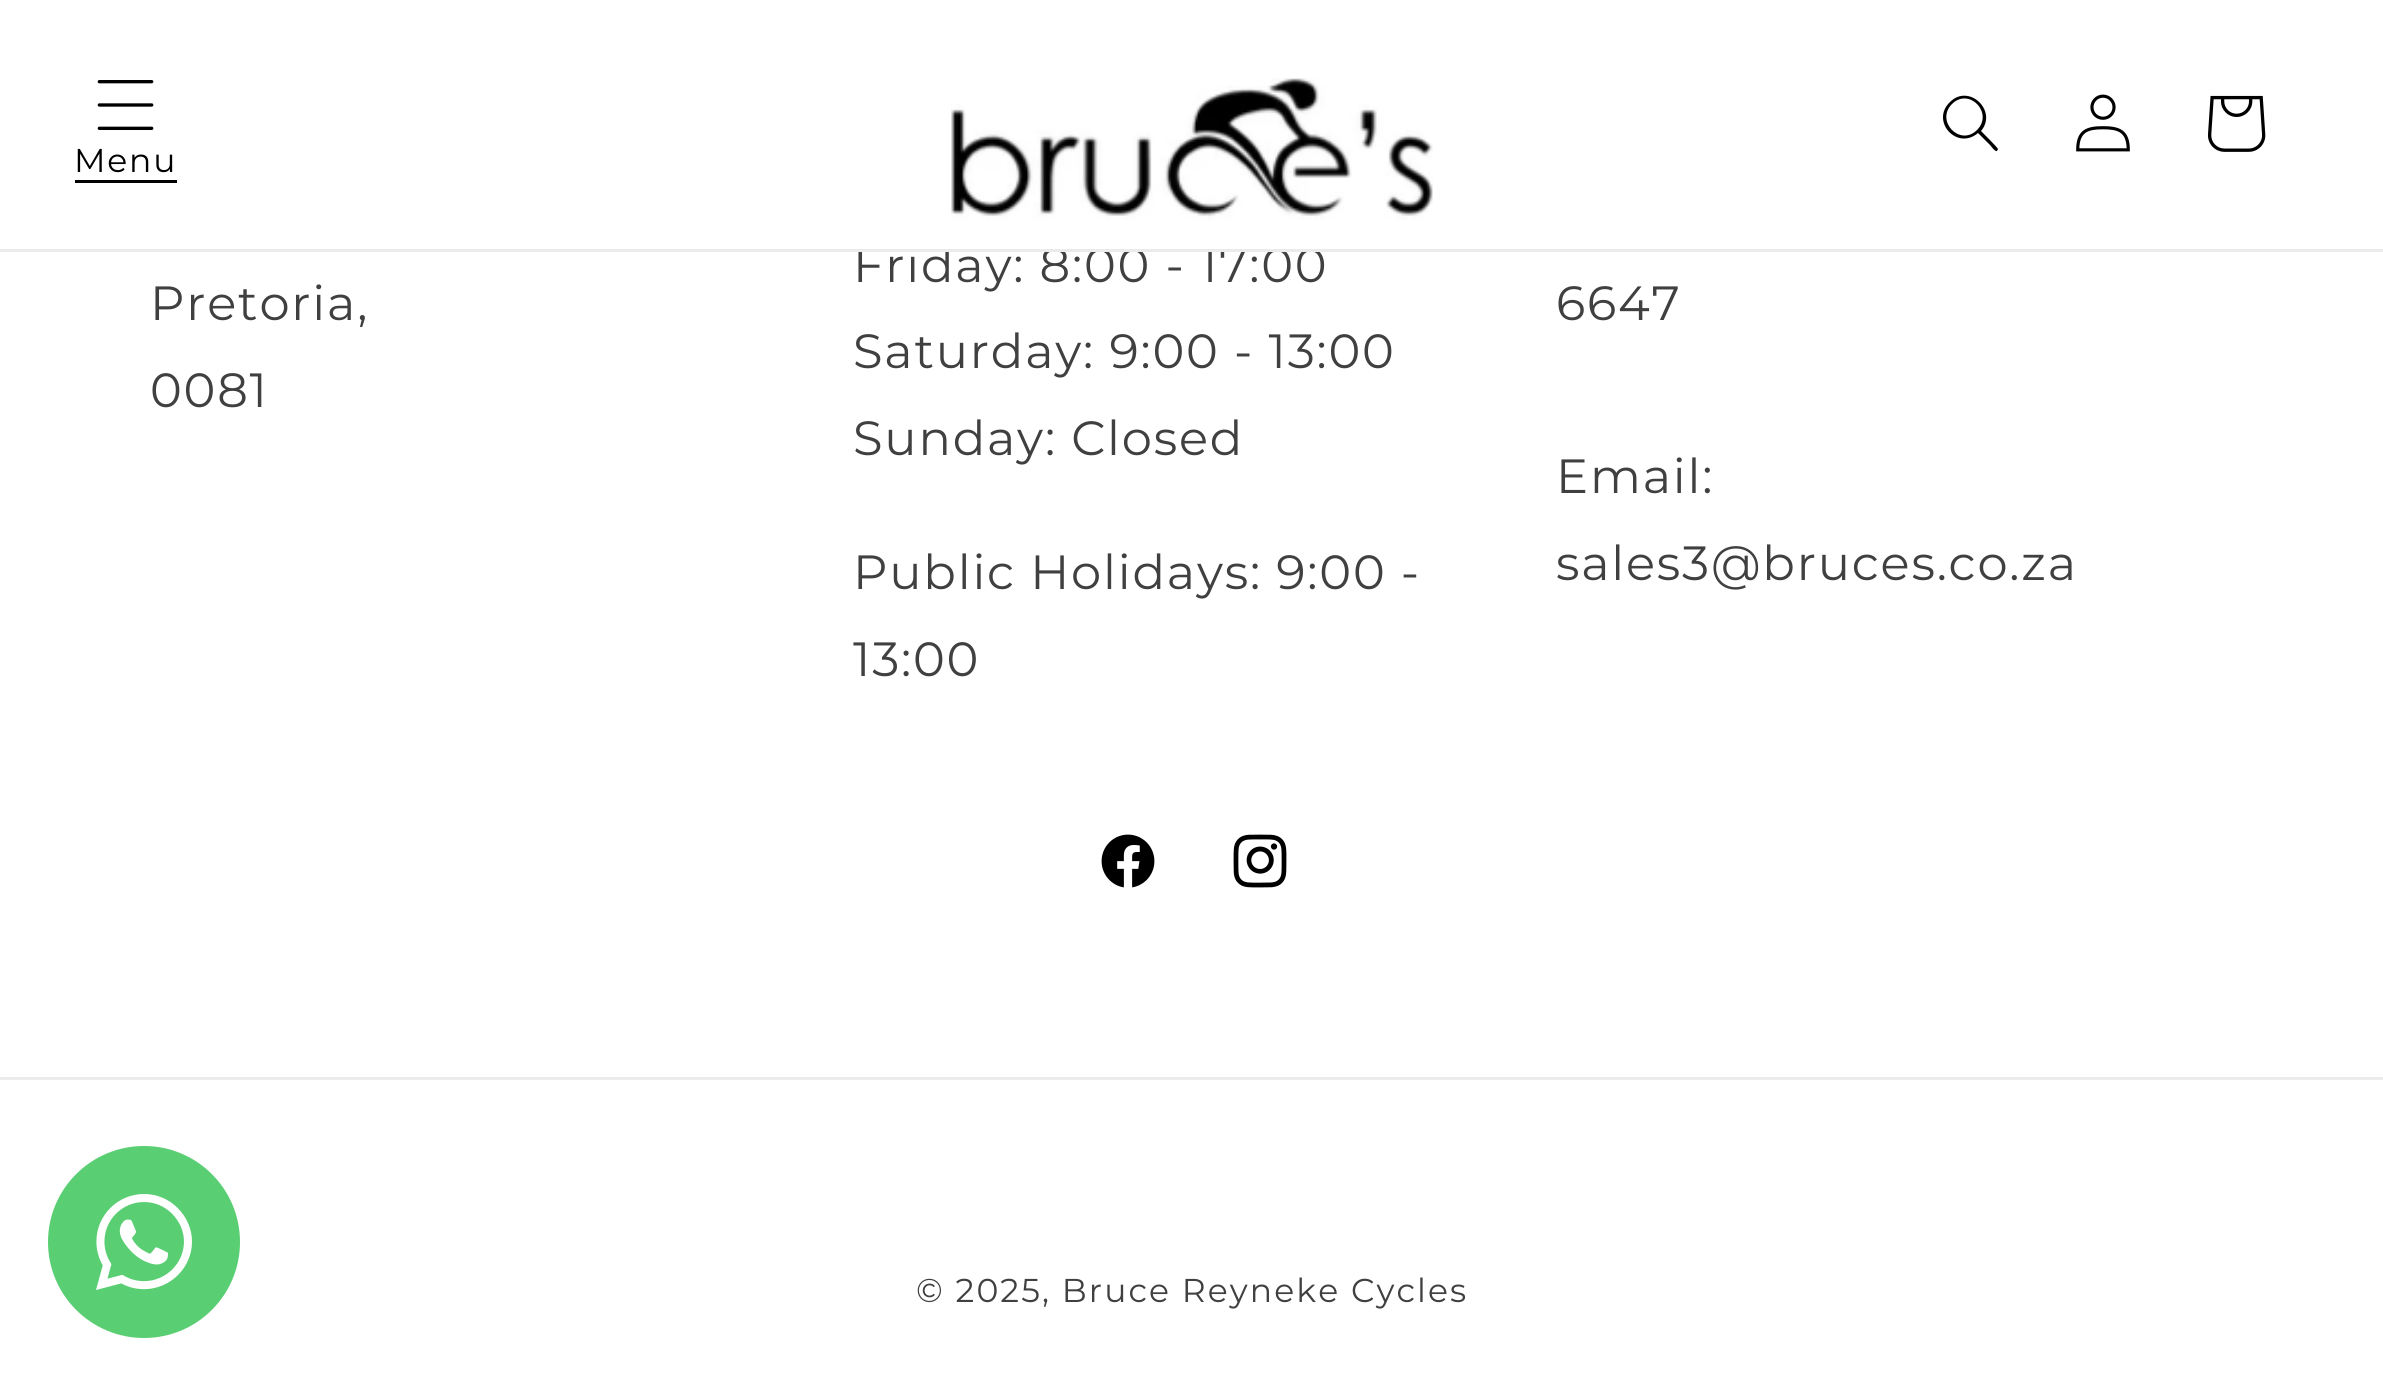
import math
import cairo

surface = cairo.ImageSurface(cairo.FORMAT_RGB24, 2383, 1386)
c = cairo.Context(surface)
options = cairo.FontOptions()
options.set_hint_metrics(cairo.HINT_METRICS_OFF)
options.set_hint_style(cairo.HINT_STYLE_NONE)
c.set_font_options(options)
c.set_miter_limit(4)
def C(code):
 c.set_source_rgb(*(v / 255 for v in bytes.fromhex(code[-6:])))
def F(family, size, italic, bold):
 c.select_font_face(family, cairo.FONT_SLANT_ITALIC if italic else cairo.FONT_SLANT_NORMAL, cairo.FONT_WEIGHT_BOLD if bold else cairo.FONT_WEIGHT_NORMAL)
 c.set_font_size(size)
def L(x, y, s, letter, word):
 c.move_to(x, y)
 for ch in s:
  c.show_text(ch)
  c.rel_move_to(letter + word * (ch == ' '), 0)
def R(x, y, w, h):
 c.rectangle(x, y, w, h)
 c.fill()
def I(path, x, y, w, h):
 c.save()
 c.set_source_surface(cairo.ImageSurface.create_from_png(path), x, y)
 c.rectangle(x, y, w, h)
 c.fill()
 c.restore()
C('ffffff')
c.paint()
F('Montserrat',48,0,0)
C('404040')
L(853,282,'Friday: 8:00 - 17:00',1.8,0)
C('ffffff')
R(858,246,458,3)
C('ebebeb')
R(0,249,2383,3)
I('1.png',951,78,482,142)
C('000000')
c.set_fill_rule(cairo.FILL_RULE_EVEN_ODD)
c.new_path()
c.move_to(1977,130)
c.curve_to(1960,147,1935,121,1952,104)
c.curve_to(1969,87,1994,113,1977,130)
c.close_path()
c.move_to(1978,133)
c.curve_to(1957,151,1930,121,1950,102)
c.curve_to(1969,83,1998,111,1981,131)
c.curve_to(1983,133,1998,148,1998,149)
c.line_to(1997,151)
c.curve_to(1995,152,1991,146,1990,145)
c.close_path()
c.fill()
I('2.png',2076,94,54,58)
I('3.png',2208,95,58,57)
I('4.png',97,80,57,50)
F('Montserrat',33,0,0)
L(74,172,'Menu',1.8,0)
R(75,180,102,3)
C('59ce72')
c.new_path()
c.arc(144,1242,96,0,2 * math.pi)
c.fill()
I('5.png',96,1194,96,96)
F('Montserrat',48,0,0)
C('404040')
L(150,320,'Pretoria,',1.8,0)
L(150,407,'0081',1.8,0)
L(853,368,'Saturday: 9:00 - 13:00',1.8,0)
L(853,455,'Sunday: Closed',1.8,0)
L(853,589,'Public Holidays: 9:00 -',1.8,0)
L(853,676,'13:00',1.8,0)
L(1556,320,'6647',1.8,0)
L(1556,493,'Email:',1.8,0)
L(1556,580,'sales3@bruces.co.za',1.8,0)
I('6.png',1101,834,54,54)
I('7.png',1233,834,54,54)
C('ebebeb')
R(0,1077,2383,3)
F('Montserrat',33,0,0)
C('404040')
L(916,1302,'© 2025, Bruce Reyneke Cycles',2.1,0)
surface.write_to_png('o.png')
